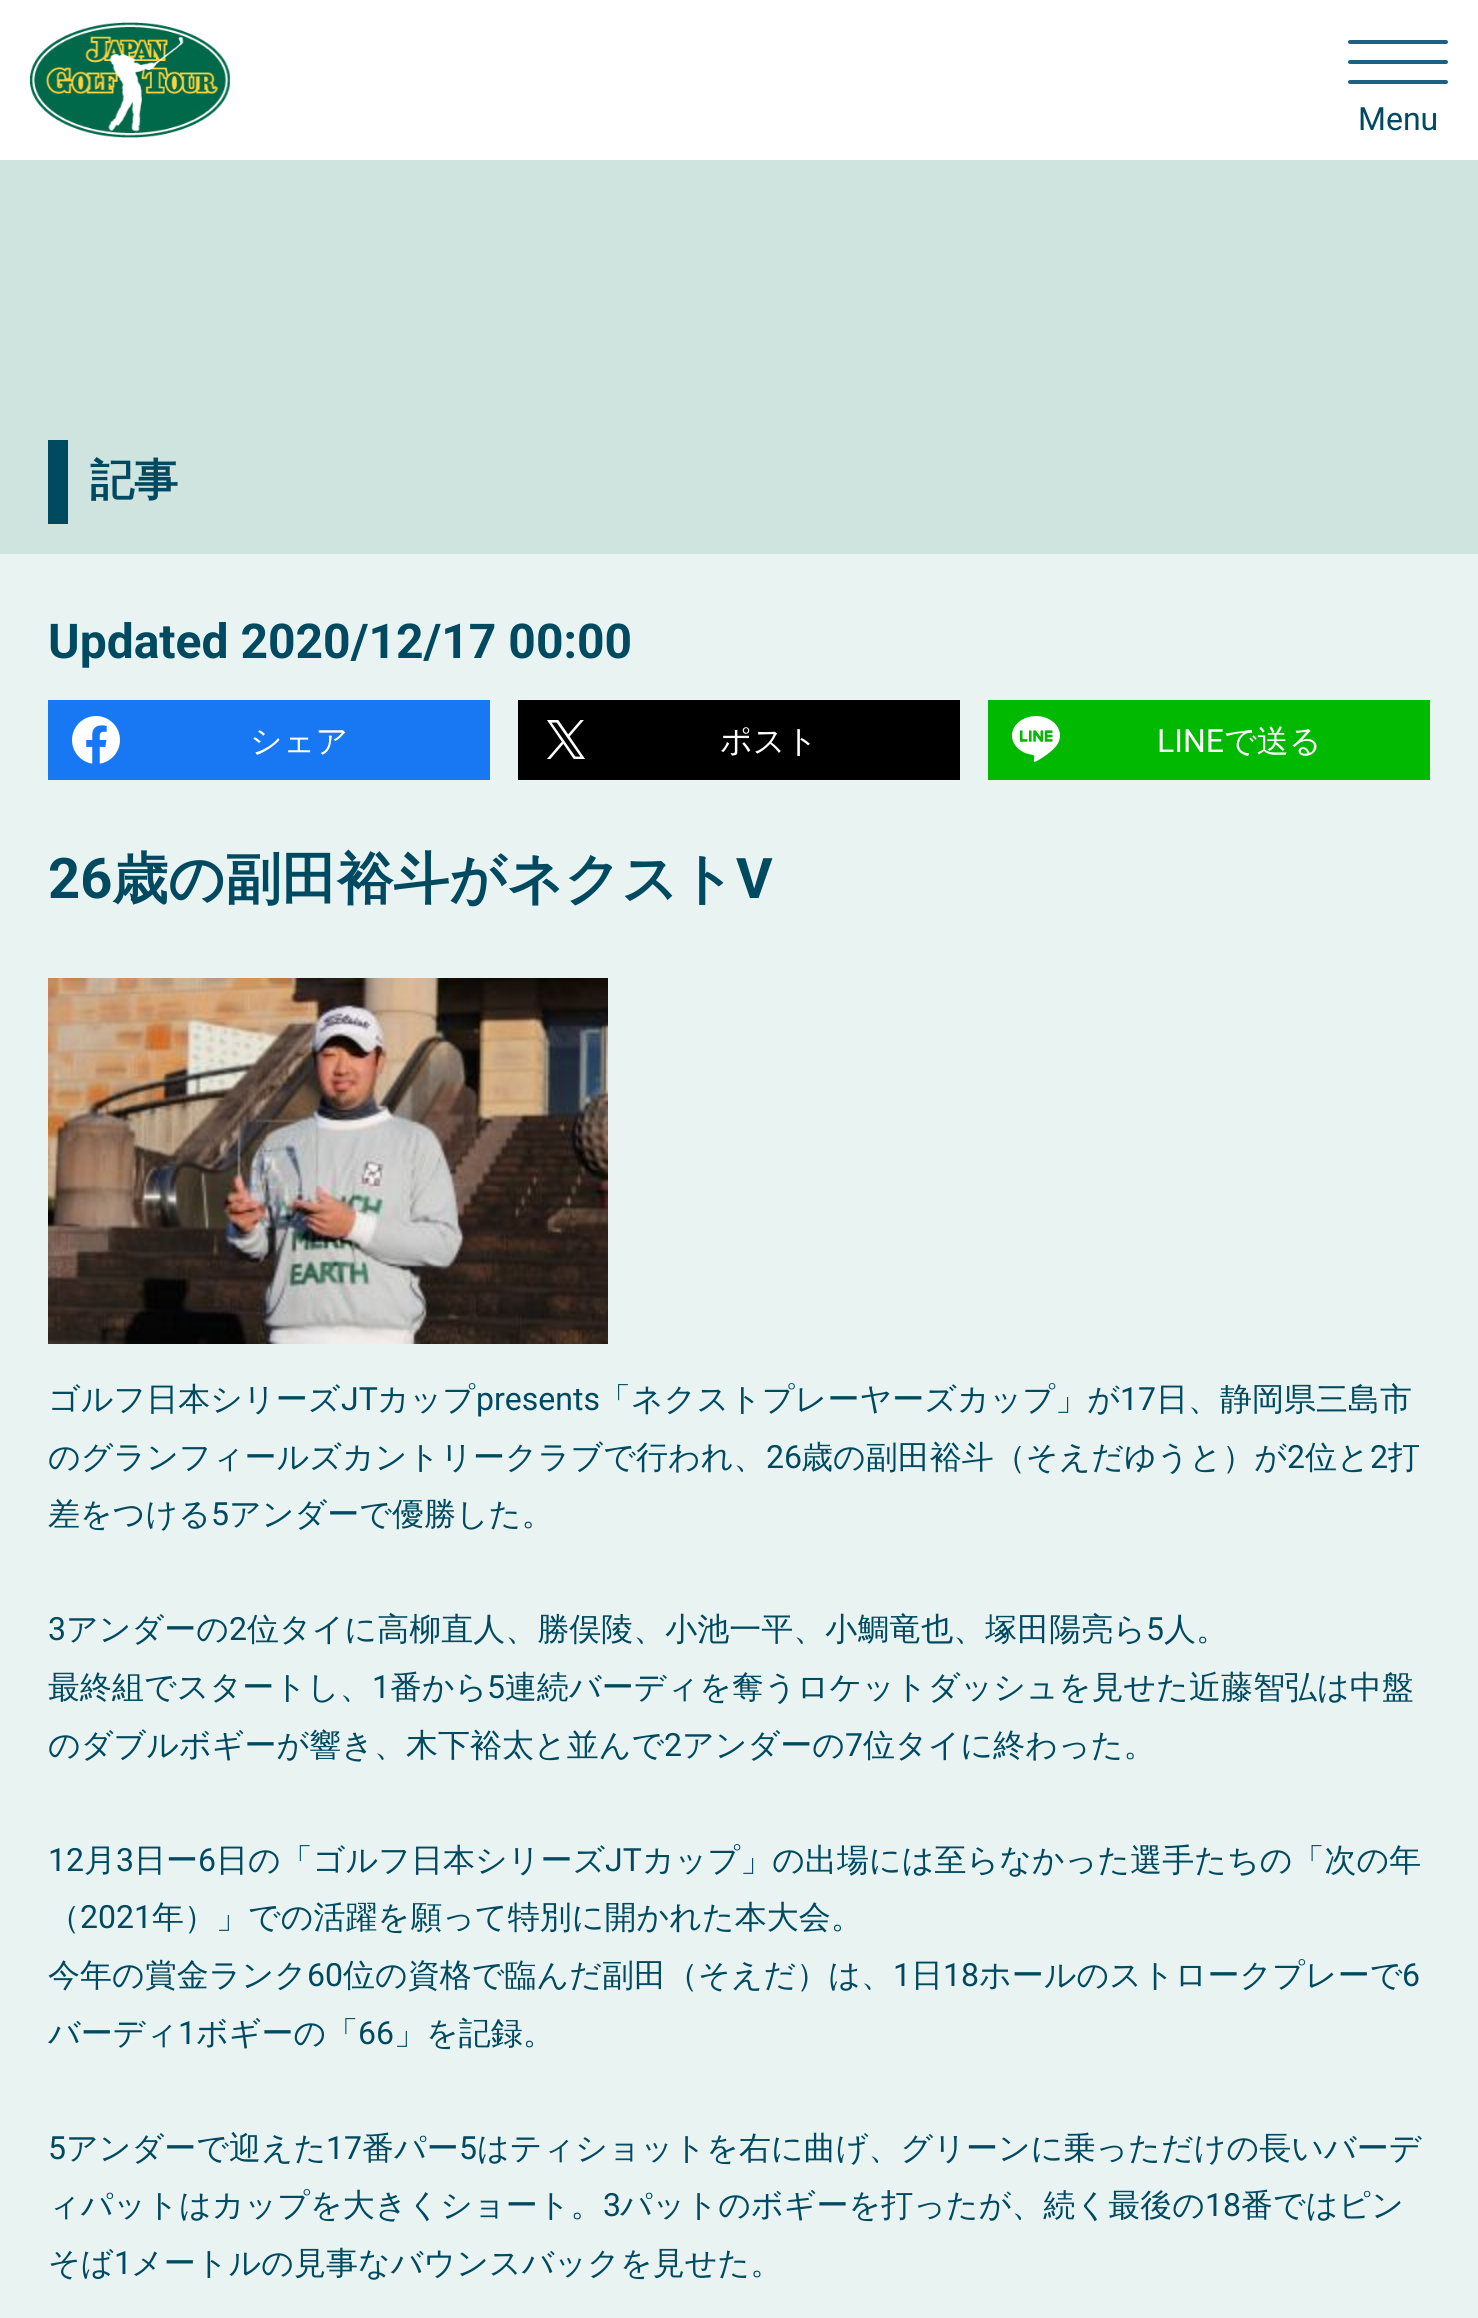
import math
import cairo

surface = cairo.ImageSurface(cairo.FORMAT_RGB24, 1478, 2318)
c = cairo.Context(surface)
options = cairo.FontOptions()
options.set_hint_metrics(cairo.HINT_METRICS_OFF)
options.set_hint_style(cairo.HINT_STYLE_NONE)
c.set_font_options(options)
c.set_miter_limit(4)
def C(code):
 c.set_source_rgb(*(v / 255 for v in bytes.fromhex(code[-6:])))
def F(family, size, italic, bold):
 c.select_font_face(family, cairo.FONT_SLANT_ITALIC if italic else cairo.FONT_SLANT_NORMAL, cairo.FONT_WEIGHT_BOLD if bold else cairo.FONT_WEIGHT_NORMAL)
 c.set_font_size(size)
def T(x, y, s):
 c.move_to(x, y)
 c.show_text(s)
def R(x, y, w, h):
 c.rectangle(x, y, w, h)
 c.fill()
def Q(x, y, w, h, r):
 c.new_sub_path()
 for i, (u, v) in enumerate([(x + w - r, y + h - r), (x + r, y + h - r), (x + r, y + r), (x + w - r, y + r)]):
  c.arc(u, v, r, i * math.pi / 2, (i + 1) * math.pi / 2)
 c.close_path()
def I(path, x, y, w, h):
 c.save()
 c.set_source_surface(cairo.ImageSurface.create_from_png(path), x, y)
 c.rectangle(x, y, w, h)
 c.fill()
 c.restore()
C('cfe4de')
c.paint()
C('ffffff')
R(0,0,1478,160)
I('1.png',30,22,200,116)
C('1b6284')
Q(1348,40,100,4,2)
c.fill()
Q(1348,60,100,4,2)
c.fill()
Q(1348,80,100,4,2)
c.fill()
F('Roboto',32,0,0)
C('004a61')
T(1358,130,'Menu')
R(48,440,20,84)
F('WenQuanYi Zen Hei',44,0,1)
T(90,495,'記事')
C('e9f4f2')
R(0,554,1478,1764)
F('Roboto',48,0,1)
C('004a61')
T(48,658,'Updated 2020/12/17 00:00')
C('1877f2')
R(48,700,442,80)
I('2.png',72,716,48,48)
F('WenQuanYi Zen Hei Medium',32,0,0)
C('ffffff')
T(250,752,'シェア')
C('000000')
R(518,700,442,80)
I('3.png',547,720,38,39)
C('ffffff')
T(720,752,'ポスト')
C('00b900')
R(988,700,442,80)
I('4.png',1012,716,48,46)
F('Roboto',32,0,0)
C('ffffff')
T(1157,752,'LINE')
F('WenQuanYi Zen Hei Medium',32,0,0)
T(1224,752,'で送る')
F('Roboto',56,0,1)
C('004a61')
T(48,898,'26')
F('WenQuanYi Zen Hei',56,0,1)
T(112,898,'歳の副田裕斗がネクスト')
F('Roboto',56,0,1)
T(736,898,'V')
I('5.png',48,978,560,366)
F('WenQuanYi Zen Hei Medium',32,0,0)
T(48,1410,'ゴルフ日本シリーズ')
F('Roboto',32,0,0)
T(341,1410,'JT')
F('WenQuanYi Zen Hei Medium',32,0,0)
T(377,1410,'カップ')
F('Roboto',32,0,0)
T(476,1410,'presents')
F('WenQuanYi Zen Hei Medium',32,0,0)
T(599,1410,'「ネクストプレーヤーズカップ」が')
F('Roboto',32,0,0)
T(1120,1410,'17')
F('WenQuanYi Zen Hei Medium',32,0,0)
T(1156,1410,'日、静岡県三島市')
T(48,1468,'のグランフィールズカントリークラブで行われ、')
F('Roboto',32,0,0)
T(766,1468,'26')
F('WenQuanYi Zen Hei Medium',32,0,0)
T(801,1468,'歳の副田裕斗（そえだゆうと）が')
F('Roboto',32,0,0)
T(1287,1468,'2')
F('WenQuanYi Zen Hei Medium',32,0,0)
T(1305,1468,'位と')
F('Roboto',32,0,0)
T(1370,1468,'2')
F('WenQuanYi Zen Hei Medium',32,0,0)
T(1388,1468,'打')
T(48,1525,'差をつける')
F('Roboto',32,0,0)
T(211,1525,'5')
F('WenQuanYi Zen Hei Medium',32,0,0)
T(229,1525,'アンダーで優勝した。')
F('Roboto',32,0,0)
T(48,1640,'3')
F('WenQuanYi Zen Hei Medium',32,0,0)
T(66,1640,'アンダーの')
F('Roboto',32,0,0)
T(229,1640,'2')
F('WenQuanYi Zen Hei Medium',32,0,0)
T(247,1640,'位タイに高柳直人、勝俣陵、小池一平、小鯛竜也、塚田陽亮ら')
F('Roboto',32,0,0)
T(1146,1640,'5')
F('WenQuanYi Zen Hei Medium',32,0,0)
T(1164,1640,'人。')
T(48,1698,'最終組でスタートし、')
F('Roboto',32,0,0)
T(372,1698,'1')
F('WenQuanYi Zen Hei Medium',32,0,0)
T(390,1698,'番から')
F('Roboto',32,0,0)
T(487,1698,'5')
F('WenQuanYi Zen Hei Medium',32,0,0)
T(505,1698,'連続バーディを奪うロケットダッシュを見せた近藤智弘は中盤')
T(48,1756,'のダブルボギーが響き、木下裕太と並んで')
F('Roboto',32,0,0)
T(664,1756,'2')
F('WenQuanYi Zen Hei Medium',32,0,0)
T(682,1756,'アンダーの')
F('Roboto',32,0,0)
T(845,1756,'7')
F('WenQuanYi Zen Hei Medium',32,0,0)
T(863,1756,'位タイに終わった。')
F('Roboto',32,0,0)
T(48,1871,'12')
F('WenQuanYi Zen Hei Medium',32,0,0)
T(84,1871,'月')
F('Roboto',32,0,0)
T(116,1871,'3')
F('WenQuanYi Zen Hei Medium',32,0,0)
T(134,1871,'日ー')
F('Roboto',32,0,0)
T(198,1871,'6')
F('WenQuanYi Zen Hei Medium',32,0,0)
T(216,1871,'日の「ゴルフ日本シリーズ')
F('Roboto',32,0,0)
T(605,1871,'JT')
F('WenQuanYi Zen Hei Medium',32,0,0)
T(642,1871,'カップ」の出場には至らなかった選手たちの「次の年')
T(48,1928,'（')
F('Roboto',32,0,0)
T(80,1928,'2021')
F('WenQuanYi Zen Hei Medium',32,0,0)
T(152,1928,'年）」での活躍を願って特別に開かれた本大会。')
T(48,1986,'今年の賞金ランク')
F('Roboto',32,0,0)
T(307,1986,'60')
F('WenQuanYi Zen Hei Medium',32,0,0)
T(343,1986,'位の資格で臨んだ副田（そえだ）は、')
F('Roboto',32,0,0)
T(893,1986,'1')
F('WenQuanYi Zen Hei Medium',32,0,0)
T(911,1986,'日')
F('Roboto',32,0,0)
T(943,1986,'18')
F('WenQuanYi Zen Hei Medium',32,0,0)
T(979,1986,'ホールのストロークプレーで')
F('Roboto',32,0,0)
T(1402,1986,'6')
F('WenQuanYi Zen Hei Medium',32,0,0)
T(48,2044,'バーディ')
F('Roboto',32,0,0)
T(178,2044,'1')
F('WenQuanYi Zen Hei Medium',32,0,0)
T(196,2044,'ボギーの「')
F('Roboto',32,0,0)
T(358,2044,'66')
F('WenQuanYi Zen Hei Medium',32,0,0)
T(394,2044,'」を記録。')
F('Roboto',32,0,0)
T(48,2159,'5')
F('WenQuanYi Zen Hei Medium',32,0,0)
T(66,2159,'アンダーで迎えた')
F('Roboto',32,0,0)
T(326,2159,'17')
F('WenQuanYi Zen Hei Medium',32,0,0)
T(362,2159,'番パー')
F('Roboto',32,0,0)
T(459,2159,'5')
F('WenQuanYi Zen Hei Medium',32,0,0)
T(477,2159,'はティショットを右に曲げ、グリーンに乗っただけの長いバーデ')
T(48,2216,'ィパットはカップを大きくショート。')
F('Roboto',32,0,0)
T(603,2216,'3')
F('WenQuanYi Zen Hei Medium',32,0,0)
T(620,2216,'パットのボギーを打ったが、続く最後の')
F('Roboto',32,0,0)
T(1205,2216,'18')
F('WenQuanYi Zen Hei Medium',32,0,0)
T(1241,2216,'番ではピン')
T(48,2274,'そば')
F('Roboto',32,0,0)
T(114,2274,'1')
F('WenQuanYi Zen Hei Medium',32,0,0)
T(131,2274,'メートルの見事なバウンスバックを見せた。')
surface.write_to_png('o.png')
